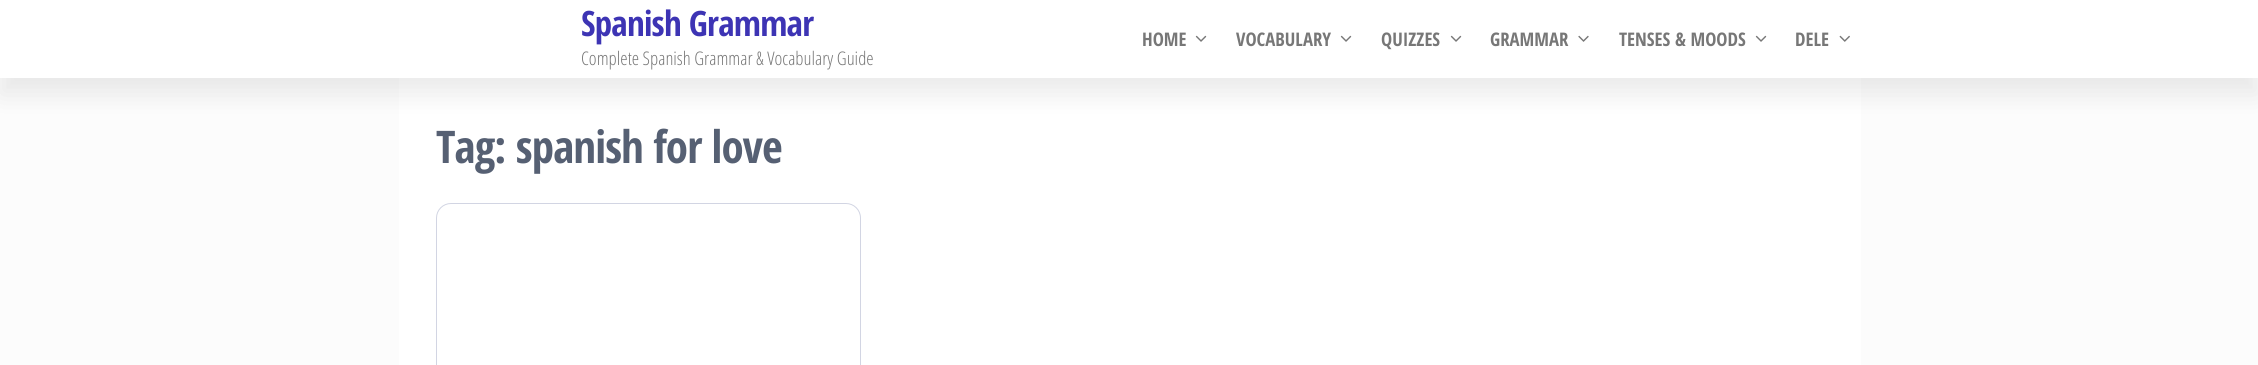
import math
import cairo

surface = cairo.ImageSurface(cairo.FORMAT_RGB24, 2258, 365)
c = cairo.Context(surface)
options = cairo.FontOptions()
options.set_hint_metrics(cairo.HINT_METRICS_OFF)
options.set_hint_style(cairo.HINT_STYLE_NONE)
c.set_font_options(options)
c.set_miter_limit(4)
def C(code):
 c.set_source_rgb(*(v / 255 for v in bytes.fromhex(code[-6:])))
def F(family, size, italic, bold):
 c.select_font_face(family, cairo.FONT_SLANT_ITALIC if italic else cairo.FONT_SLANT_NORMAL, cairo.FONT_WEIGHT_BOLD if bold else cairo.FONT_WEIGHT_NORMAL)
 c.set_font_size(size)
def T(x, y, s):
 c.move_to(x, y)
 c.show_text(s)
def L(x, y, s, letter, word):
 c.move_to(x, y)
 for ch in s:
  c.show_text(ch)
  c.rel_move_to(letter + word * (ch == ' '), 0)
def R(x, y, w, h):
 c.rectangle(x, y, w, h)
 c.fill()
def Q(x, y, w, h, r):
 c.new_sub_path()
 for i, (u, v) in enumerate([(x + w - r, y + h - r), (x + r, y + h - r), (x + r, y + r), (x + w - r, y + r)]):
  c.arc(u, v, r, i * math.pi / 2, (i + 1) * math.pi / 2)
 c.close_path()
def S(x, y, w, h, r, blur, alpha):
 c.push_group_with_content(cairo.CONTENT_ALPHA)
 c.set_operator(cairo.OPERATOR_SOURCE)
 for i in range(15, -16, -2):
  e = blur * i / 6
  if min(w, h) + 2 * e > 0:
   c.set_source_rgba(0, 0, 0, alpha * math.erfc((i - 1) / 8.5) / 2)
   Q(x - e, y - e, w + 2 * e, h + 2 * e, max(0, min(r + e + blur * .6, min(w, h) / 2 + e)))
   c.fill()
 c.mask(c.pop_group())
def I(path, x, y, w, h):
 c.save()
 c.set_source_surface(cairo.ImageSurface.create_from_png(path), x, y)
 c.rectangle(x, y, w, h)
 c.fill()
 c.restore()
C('fcfcfc')
c.paint()
C('ffffff')
R(399,78,1462,287)
C('000000')
S(0,18,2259,77,0,12.5,.08)
C('ffffff')
R(0,0,2258,78)
F('Open Sans Condensed',35,0,1)
C('3d34b4')
L(581,36,'Spanish Grammar',-.75,0)
F('Open Sans Condensed Light',18.75,0,0)
C('777777')
T(581,65,'Complete Spanish Grammar & Vocabulary Guide')
F('Open Sans Condensed',18.75,0,1)
T(1142,46,'HOME')
I('1.png',1195,35,12,7)
T(1236,46,'VOCABULARY')
I('1.png',1340,35,12,7)
T(1381,46,'QUIZZES')
I('1.png',1450,35,12,7)
T(1490,46,'GRAMMAR')
I('2.png',1578,35,11,7)
T(1619,46,'TENSES & MOODS')
I('1.png',1755,35,12,7)
T(1795,46,'DELE')
I('3.png',1839,35,11,7)
F('Open Sans Condensed',45,0,1)
C('566073')
L(436,163,'Tag: spanish for love',-.9,0)
Q(436.5,203.5,424,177,14.5)
C('d2d5e3')
c.set_line_width(1)
c.stroke()
surface.write_to_png('o.png')
